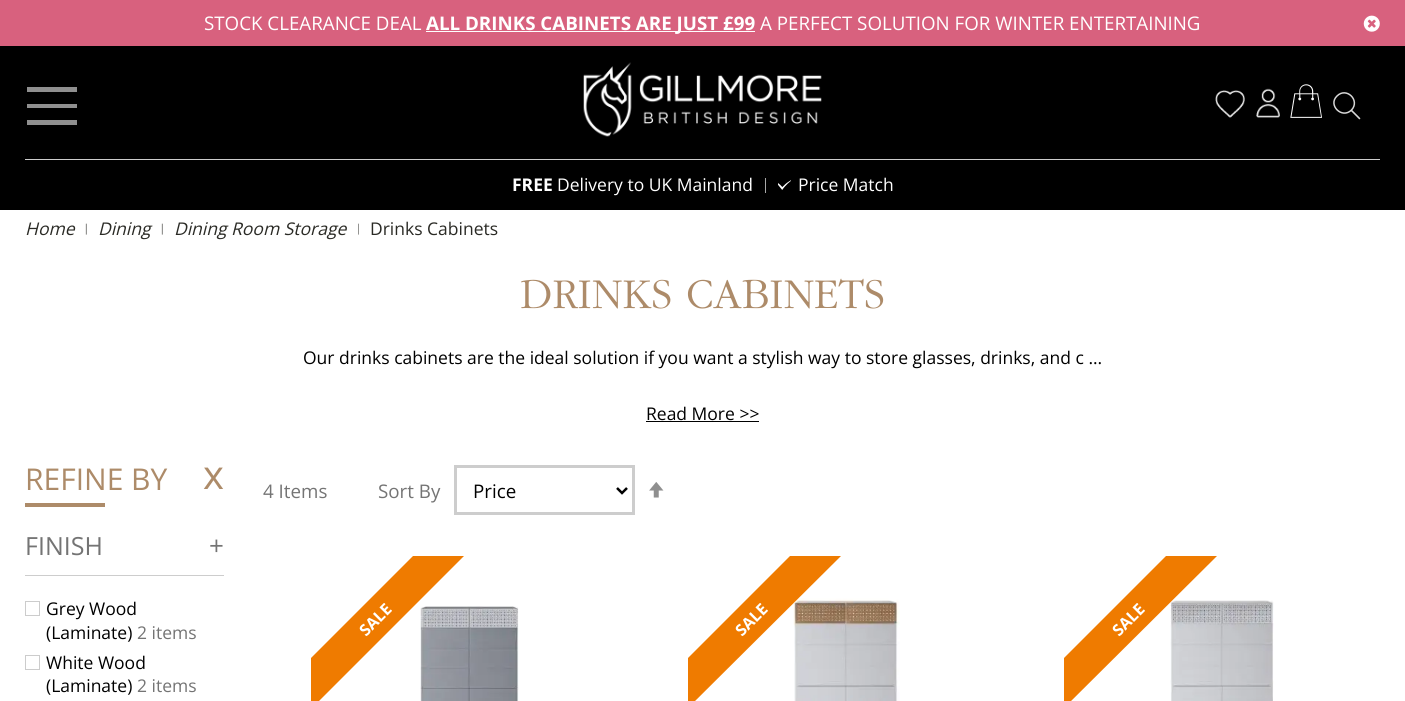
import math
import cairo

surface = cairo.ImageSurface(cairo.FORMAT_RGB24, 1405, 701)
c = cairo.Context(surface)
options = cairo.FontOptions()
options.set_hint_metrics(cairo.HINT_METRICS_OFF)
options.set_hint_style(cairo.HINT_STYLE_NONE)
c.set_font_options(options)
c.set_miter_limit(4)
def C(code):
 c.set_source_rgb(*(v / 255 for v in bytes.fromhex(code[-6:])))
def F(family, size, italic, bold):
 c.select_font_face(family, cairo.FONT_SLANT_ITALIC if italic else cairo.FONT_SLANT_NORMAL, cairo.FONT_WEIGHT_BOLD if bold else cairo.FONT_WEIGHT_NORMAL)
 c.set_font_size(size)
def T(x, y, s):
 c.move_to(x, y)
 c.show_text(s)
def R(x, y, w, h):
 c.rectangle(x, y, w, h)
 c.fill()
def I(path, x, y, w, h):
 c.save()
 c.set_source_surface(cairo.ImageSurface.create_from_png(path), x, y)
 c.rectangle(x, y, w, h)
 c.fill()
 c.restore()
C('ffffff')
c.paint()
C('d8617e')
R(0,0,1405,46)
F('Open Sans',18.75,0,0)
C('ffffff')
T(204,30,'STOCK CLEARANCE DEAL')
R(426,31,329,1)
F('Open Sans',18.75,0,1)
T(426,30,'ALL DRINKS CABINETS ARE JUST £99')
F('Open Sans',18.75,0,0)
T(760,30,'A PERFECT SOLUTION FOR WINTER ENTERTAINING')
I('1.png',1363,15,17,17)
C('000000')
R(0,46,1405,164)
C('8f8f8f')
c.new_path()
c.move_to(27,87)
c.line_to(27,92)
c.line_to(77,92)
c.line_to(77,87)
c.close_path()
c.move_to(27,108)
c.line_to(77,108)
c.line_to(77,104)
c.line_to(27,104)
c.close_path()
c.move_to(27,125)
c.line_to(77,125)
c.line_to(77,120)
c.line_to(27,120)
c.close_path()
c.fill()
I('2.png',583,62,239,75)
I('3.png',1215,90,30,28)
I('4.png',1256,88,24,30)
I('5.png',1290,84,32,34)
c.new_path()
c.move_to(1337,96)
c.curve_to(1327.5,105,1342,119.5,1351.5,110)
c.curve_to(1360.5,100.5,1346.5,86.5,1337,96)
c.close_path()
C('d8d8d8')
c.set_line_width(1.5)
c.stroke()
c.new_path()
c.move_to(1351.5,110.5)
c.line_to(1359.5,118.5)
c.set_line_width(1.6)
c.set_line_cap(cairo.LINE_CAP_ROUND)
c.stroke()
C('cccccc')
R(25,159,1355,1)
F('Open Sans',17.5,0,1)
C('ffffff')
T(512,191,'FREE')
F('Open Sans',17.5,0,0)
T(557,191,'Delivery to UK Mainland')
I('6.png',778,180,13,10)
C('a8a8a8')
R(765,178,1,15)
C('ffffff')
T(798,191,'Price Match')
F('Open Sans',17.5,1,0)
C('2a2a25')
T(25,235,'Home')
F('Liberation Serif',12,0,0)
T(85,232,'|')
F('Open Sans',17.5,1,0)
T(98,235,'Dining')
F('Liberation Serif',12,0,0)
T(161,232,'|')
F('Open Sans',17.5,1,0)
T(174,235,'Dining Room Storage')
c.save()
c.rectangle(358,216,3,23)
c.clip()
F('Liberation Serif',12,0,0)
T(357,232,'|')
c.restore()
F('Open Sans',17.5,0,0)
T(370,235,'Drinks Cabinets')
F('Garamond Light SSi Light',43.75,0,0)
C('ad8b69')
T(520,308,'DRINKS CABINETS')
F('Open Sans',17.5,0,0)
C('000000')
T(303,364,'Our drinks cabinets are the ideal solution if you want a stylish way to store glasses, drinks, and c ...')
T(646,420,'Read More >>')
R(646,421,113,1)
F('Open Sans',30,0,0)
C('ad8b69')
T(25,490,'REFINE BY')
F('Open Sans',40,0,0)
T(203,489,'x')
R(25,503,80,4)
C('cdcdcd')
R(25,575,199,1)
F('Open Sans',25,0,0)
C('747474')
T(25,555,'FINISH')
F('Open Sans',26,0,0)
T(209,555,'+')
c.rectangle(25.5,601.5,14,14)
C('cccccc')
c.set_line_width(1)
c.set_line_cap(cairo.LINE_CAP_BUTT)
c.stroke()
F('Open Sans',17.5,0,0)
C('000000')
T(46,615,'Grey Wood')
T(46,639,'(Laminate)')
C('747474')
T(137,639,'2 items')
c.rectangle(25.5,655.5,14,14)
C('cccccc')
c.stroke()
C('000000')
T(46,669,'White Wood')
T(46,692,'(Laminate)')
C('747474')
T(137,692,'2 items')
F('Open Sans',18.75,0,0)
T(263,498,'4 Items')
T(378,498,'Sort By')
c.rectangle(455.5,466.5,178,47)
C('cdcdcd')
c.set_line_width(3)
c.stroke()
c.new_path()
c.move_to(617,488)
c.line_to(622,493)
c.line_to(627,488)
C('000000')
c.set_line_width(2.5)
c.stroke()
T(473,498,'Price')
I('7.png',649,482,15,16)
I('8.png',420,606,99,95)
c.save()
c.rectangle(311,556,317,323)
c.clip()
C('ef7b00')
c.new_path()
c.move_to(285,684)
c.line_to(440,529)
c.line_to(465,555)
c.line_to(311,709)
c.close_path()
c.fill()
c.restore()
F('Open Sans',16,0,1)
C('ffffff')
c.save()
c.translate(366,637)
c.rotate(-45 * math.pi / 180)
T(0,0,'SALE')
c.restore()
I('9.png',793,598,107,103)
c.save()
c.rectangle(688,556,316,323)
c.clip()
C('ef7b00')
c.new_path()
c.move_to(662,684)
c.line_to(817,529)
c.line_to(842,555)
c.line_to(687,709)
c.close_path()
c.fill()
c.restore()
c.save()
c.translate(742,637)
c.rotate(-45 * math.pi / 180)
T(0,0,'SALE')
c.restore()
I('10.png',1170,600,104,101)
c.save()
c.rectangle(1064,556,316,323)
c.clip()
C('ef7b00')
c.new_path()
c.move_to(1038,684)
c.line_to(1193,529)
c.line_to(1218,555)
c.line_to(1063,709)
c.close_path()
c.fill()
c.restore()
c.save()
c.translate(1119,637)
c.rotate(-45 * math.pi / 180)
T(0,0,'SALE')
c.restore()
surface.write_to_png('o.png')
